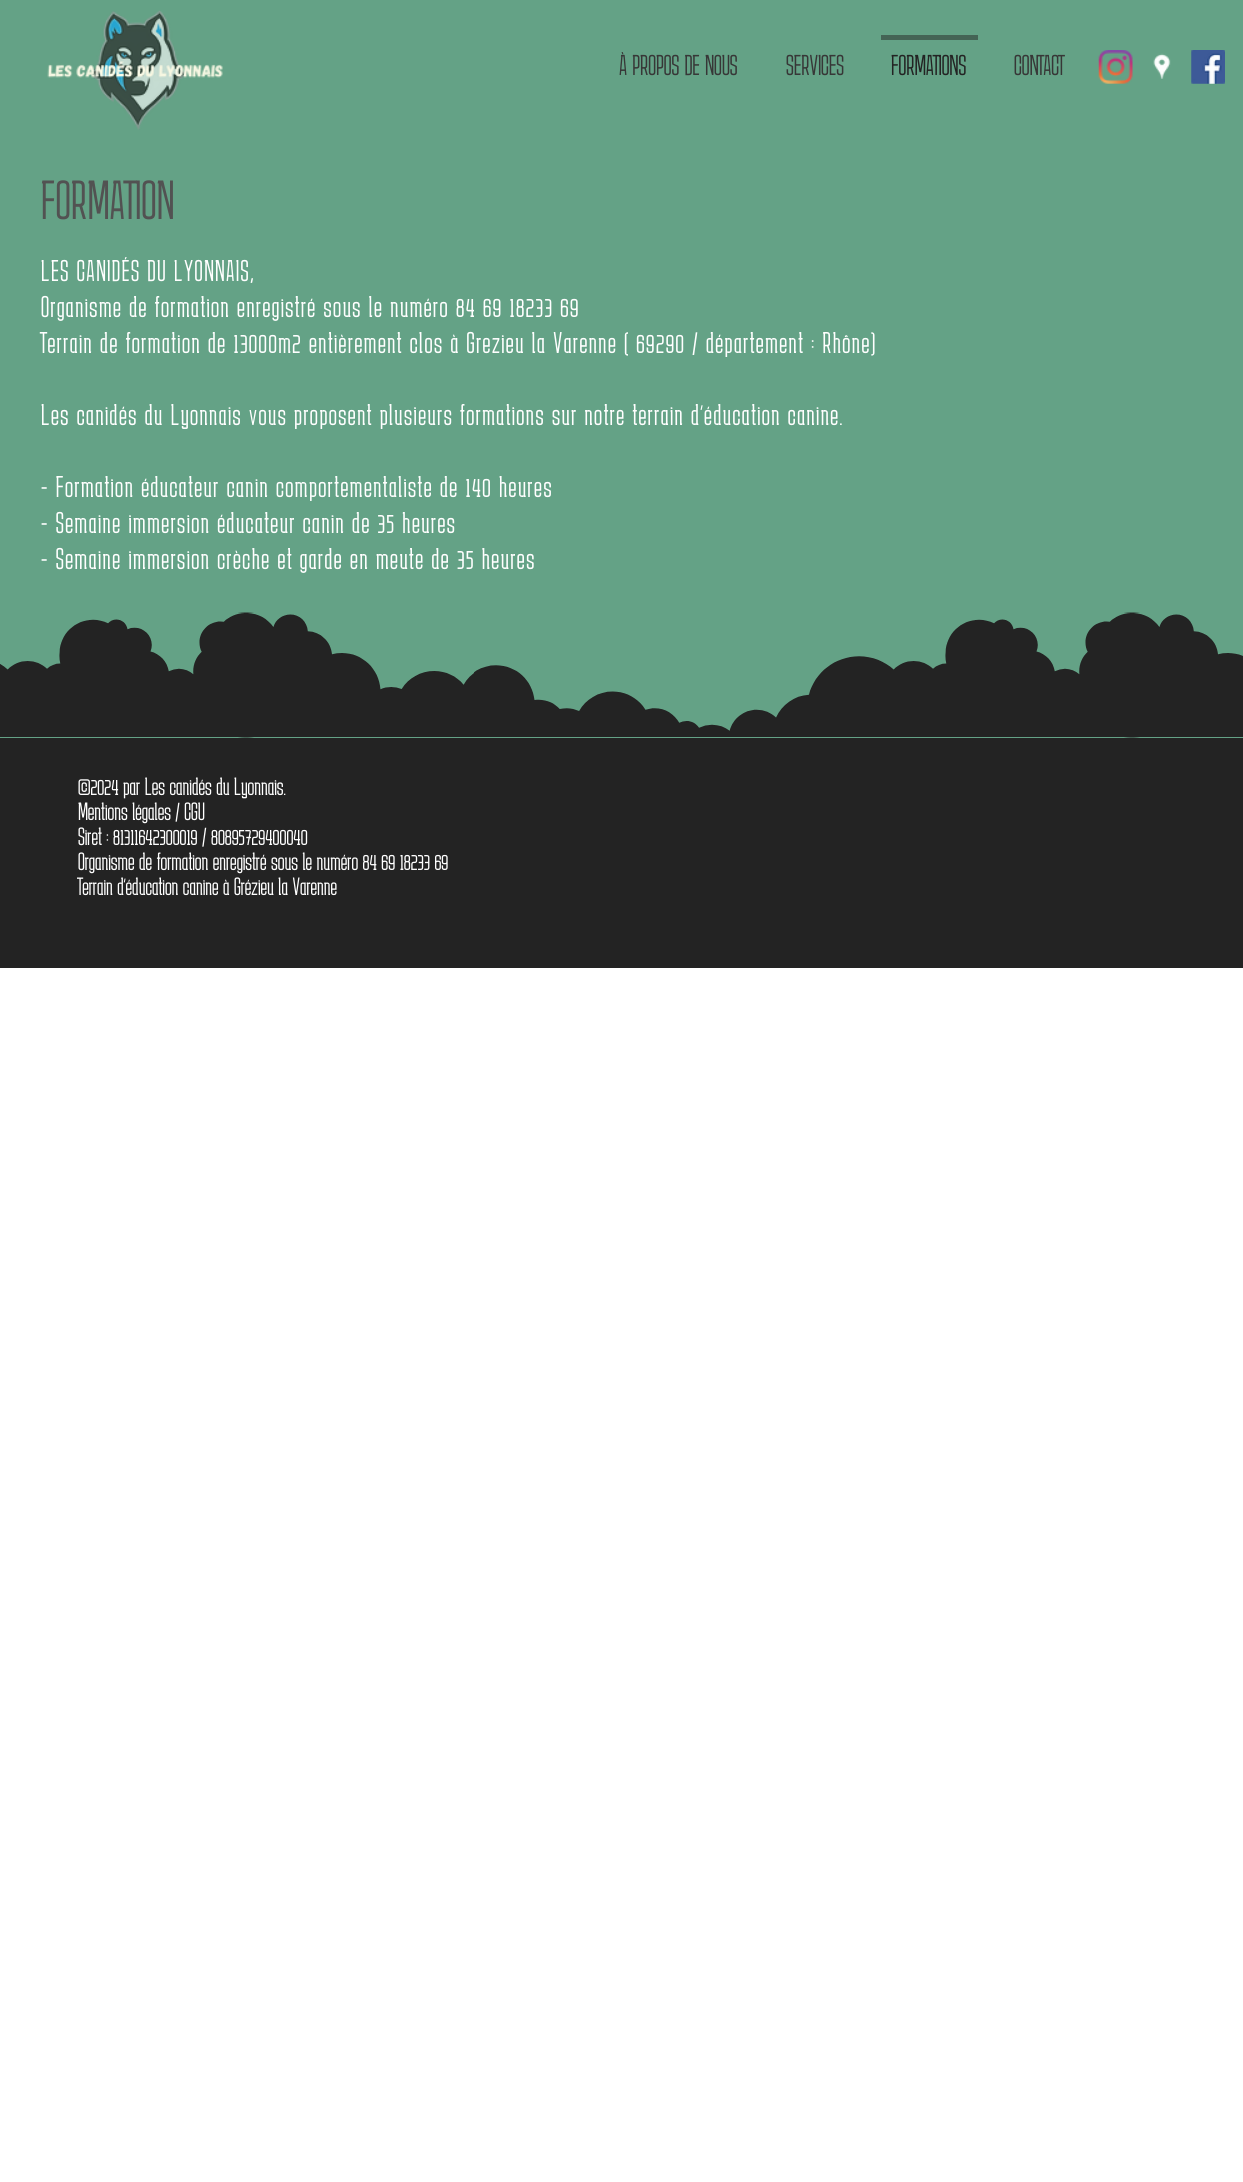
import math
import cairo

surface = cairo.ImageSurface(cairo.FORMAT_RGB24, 1243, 2182)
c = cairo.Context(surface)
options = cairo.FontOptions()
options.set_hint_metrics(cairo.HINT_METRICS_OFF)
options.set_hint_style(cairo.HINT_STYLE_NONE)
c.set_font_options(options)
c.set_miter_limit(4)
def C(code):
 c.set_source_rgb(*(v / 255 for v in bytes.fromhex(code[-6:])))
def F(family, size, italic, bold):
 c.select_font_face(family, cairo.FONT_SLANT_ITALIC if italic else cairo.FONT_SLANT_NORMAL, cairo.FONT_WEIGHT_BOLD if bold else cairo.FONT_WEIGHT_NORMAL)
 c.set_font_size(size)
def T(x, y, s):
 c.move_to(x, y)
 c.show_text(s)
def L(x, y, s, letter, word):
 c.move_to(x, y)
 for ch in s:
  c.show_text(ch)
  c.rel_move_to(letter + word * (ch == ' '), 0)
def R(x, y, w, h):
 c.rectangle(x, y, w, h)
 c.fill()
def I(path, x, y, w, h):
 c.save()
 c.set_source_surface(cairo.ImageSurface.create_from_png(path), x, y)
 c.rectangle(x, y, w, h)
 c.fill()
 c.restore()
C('ffffff')
c.paint()
C('64a286')
R(0,0,1243,738)
I('1.png',47,10,176,120)
F('Karantina Light',28.75,0,0)
C('373737')
T(619,75,'À PROPOS DE NOUS')
T(786,75,'SERVICES')
C('446455')
R(881,35,97,5)
C('232323')
T(891,75,'FORMATIONS')
C('373737')
T(1014,75,'CONTACT')
I('2.png',1098,50,35,34)
I('3.png',1153,53,18,26)
I('4.png',1191,50,34,34)
F('Karantina Light',55,0,0)
C('525252')
L(41,219,'FORMATION',.5,0)
F('Karantina Light',30,0,0)
C('ffffff')
L(41,281,'LES CANIDÉS DU LYONNAIS,',1.5,0)
L(41,317,'Organisme de formation enregistré sous le numéro 84 69 18233 69',1.5,0)
L(41,353,'Terrain de formation de 13000m2 entièrement clos à Grezieu la Varenne ( 69290 / département : Rhône)',1.5,0)
L(41,425,'Les canidés du Lyonnais vous proposent plusieurs formations sur notre terrain d\'éducation canine.',1.5,0)
L(41,497,'- Formation éducateur canin comportementaliste de 140 heures',1.5,0)
L(41,533,'- Semaine immersion éducateur canin de 35 heures',1.5,0)
L(41,569,'- Semaine immersion crèche et garde en meute de 35 heures',1.5,0)
I('5.png',0,612,1243,126)
C('232323')
R(0,738,1243,230)
F('Karantina Light',25,0,0)
C('ffffff')
T(78,795,'©2024 par Les canidés du Lyonnais.')
T(78,820,'Mentions légales / CGU')
T(78,845,'Siret : 81311642300019 / 80895729400040')
T(78,870,'Organisme de formation enregistré sous le numéro 84 69 18233 69')
T(78,895,'Terrain d\'éducation canine à Grézieu la Varenne')
surface.write_to_png('o.png')
